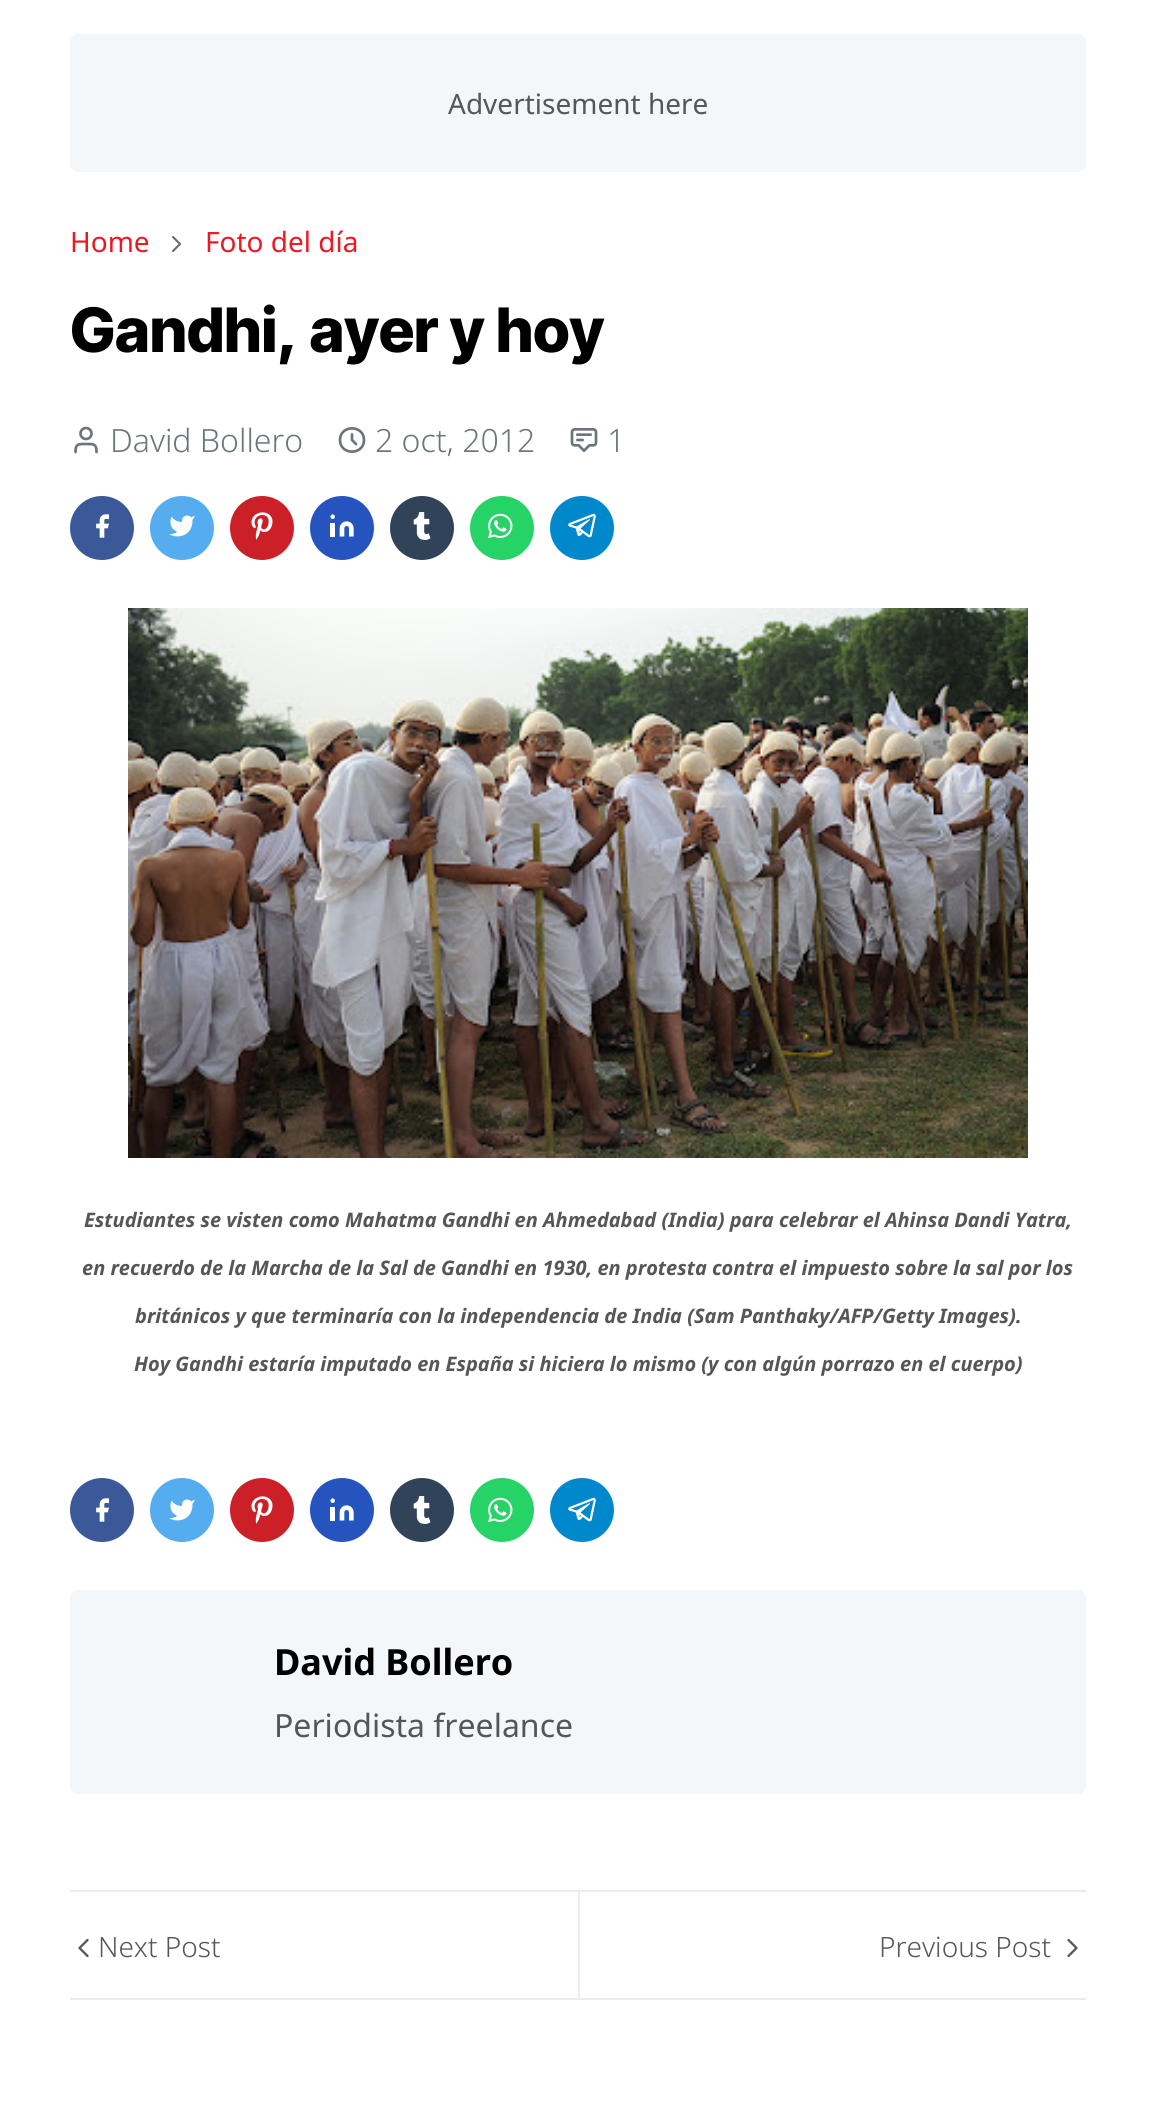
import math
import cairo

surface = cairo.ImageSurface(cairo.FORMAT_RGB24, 1155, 2105)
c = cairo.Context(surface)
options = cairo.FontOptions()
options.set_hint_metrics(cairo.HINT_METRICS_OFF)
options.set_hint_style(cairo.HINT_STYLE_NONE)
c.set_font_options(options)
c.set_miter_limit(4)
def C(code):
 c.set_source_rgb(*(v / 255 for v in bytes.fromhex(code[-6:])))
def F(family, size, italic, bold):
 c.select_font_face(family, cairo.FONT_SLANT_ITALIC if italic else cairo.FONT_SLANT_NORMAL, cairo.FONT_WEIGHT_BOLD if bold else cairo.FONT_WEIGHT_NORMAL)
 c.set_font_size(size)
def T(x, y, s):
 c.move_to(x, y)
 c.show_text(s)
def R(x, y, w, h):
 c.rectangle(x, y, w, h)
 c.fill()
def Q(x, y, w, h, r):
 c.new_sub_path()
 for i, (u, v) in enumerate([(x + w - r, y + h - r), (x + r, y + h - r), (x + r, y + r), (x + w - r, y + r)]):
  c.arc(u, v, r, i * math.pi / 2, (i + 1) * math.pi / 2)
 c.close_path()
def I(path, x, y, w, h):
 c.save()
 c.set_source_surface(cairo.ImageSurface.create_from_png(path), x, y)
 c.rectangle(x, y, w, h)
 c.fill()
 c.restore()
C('ffffff')
c.paint()
C('f3f7f9')
Q(70,34,1016,138,8)
c.fill()
F('Noto Sans',28,0,0)
C('565656')
T(448,114,'Advertisement here')
C('ec1822')
T(70,252,'Home')
I('1.png',172,236,9,16)
T(205,252,'Foto del día')
F('Inter Tight ExtraBold',61.25,0,0)
C('000000')
T(70,352,'Gandhi, ayer y hoy')
c.new_path()
c.move_to(96.5,452)
c.curve_to(96.5,443.5,93.5,444,86,444)
c.curve_to(78.5,444,75.5,443.5,75.5,452)
C('6c757d')
c.set_line_width(2.7)
c.set_line_cap(cairo.LINE_CAP_ROUND)
c.set_line_join(cairo.LINE_JOIN_ROUND)
c.stroke()
c.arc(86,433.5,5.5,0,2 * math.pi)
c.set_line_cap(cairo.LINE_CAP_BUTT)
c.set_line_join(cairo.LINE_JOIN_MITER)
c.stroke()
F('Noto Sans Light',32,0,0)
T(110,452,'David Bollero')
c.new_path()
c.move_to(352,434.5)
c.line_to(352,440)
c.line_to(356,444)
c.move_to(364,440)
c.curve_to(364,455.5,340,455.5,340,440)
c.curve_to(340,424.5,364,424.5,364,440)
c.close_path()
c.set_line_cap(cairo.LINE_CAP_ROUND)
c.set_line_join(cairo.LINE_JOIN_ROUND)
c.stroke()
T(375,452,'2 oct, 2012')
I('2.png',570,428,28,24)
T(607,452,'1')
C('3b5998')
c.new_path()
c.arc(102,528,32,0,2 * math.pi)
c.fill()
I('3.png',96,514,13,24)
C('55acee')
c.arc(182,528,32,0,2 * math.pi)
c.fill()
I('4.png',169,515,26,22)
C('cb2027')
c.arc(262,528,32,0,2 * math.pi)
c.fill()
I('5.png',251,512,22,28)
C('2554bf')
c.arc(342,528,32,0,2 * math.pi)
c.fill()
I('6.png',330,514,24,23)
C('314358')
c.arc(422,528,32,0,2 * math.pi)
c.fill()
I('7.png',413,512,18,28)
C('25d366')
c.arc(502,528,32,0,2 * math.pi)
c.fill()
I('8.png',488,513,25,26)
C('0088cc')
c.arc(582,528,32,0,2 * math.pi)
c.fill()
I('9.png',568,513,28,25)
I('10.png',128,608,900,550)
F('Noto Sans',20,1,1)
C('565656')
T(84,1227,'Estudiantes se visten como Mahatma Gandhi en Ahmedabad (India) para celebrar el Ahinsa Dandi Yatra,')
T(82,1275,'en recuerdo de la Marcha de la Sal de Gandhi en 1930, en protesta contra el impuesto sobre la sal por los')
T(135,1323,'británicos y que terminaría con la independencia de India (Sam Panthaky/AFP/Getty Images).')
T(134,1371,'Hoy Gandhi estaría imputado en España si hiciera lo mismo (y con algún porrazo en el cuerpo)')
C('3b5998')
c.new_path()
c.arc(102,1510,32,0,2 * math.pi)
c.fill()
I('3.png',96,1498,13,24)
C('55acee')
c.arc(182,1510,32,0,2 * math.pi)
c.fill()
I('4.png',169,1499,26,22)
C('cb2027')
c.arc(262,1510,32,0,2 * math.pi)
c.fill()
I('5.png',251,1496,22,28)
C('2554bf')
c.arc(342,1510,32,0,2 * math.pi)
c.fill()
I('6.png',330,1498,24,23)
C('314358')
c.arc(422,1510,32,0,2 * math.pi)
c.fill()
I('7.png',413,1496,18,28)
C('25d366')
c.arc(502,1510,32,0,2 * math.pi)
c.fill()
I('8.png',488,1497,25,26)
C('0088cc')
c.arc(582,1510,32,0,2 * math.pi)
c.fill()
I('9.png',568,1497,28,25)
C('f3f7f9')
Q(70,1590,1016,204,8)
c.fill()
F('Noto Sans',36,0,1)
C('000000')
T(274,1675,'David Bollero')
F('Noto Sans',32,0,0)
C('565656')
T(274,1737,'Periodista freelance')
C('ececec')
R(70,1890,1016,2)
R(70,1998,1016,2)
c.new_path()
c.move_to(87.5,1956)
c.line_to(79.5,1948)
c.line_to(87.5,1940)
C('565656')
c.set_line_width(2.3)
c.stroke()
F('Noto Sans Light',28,0,0)
T(98,1957,'Next Post')
C('ececec')
R(578,1892,2,106)
C('565656')
T(879,1957,'Previous Post')
c.new_path()
c.move_to(1068.5,1940)
c.line_to(1076.5,1948)
c.line_to(1068.5,1956)
c.stroke()
surface.write_to_png('o.png')
